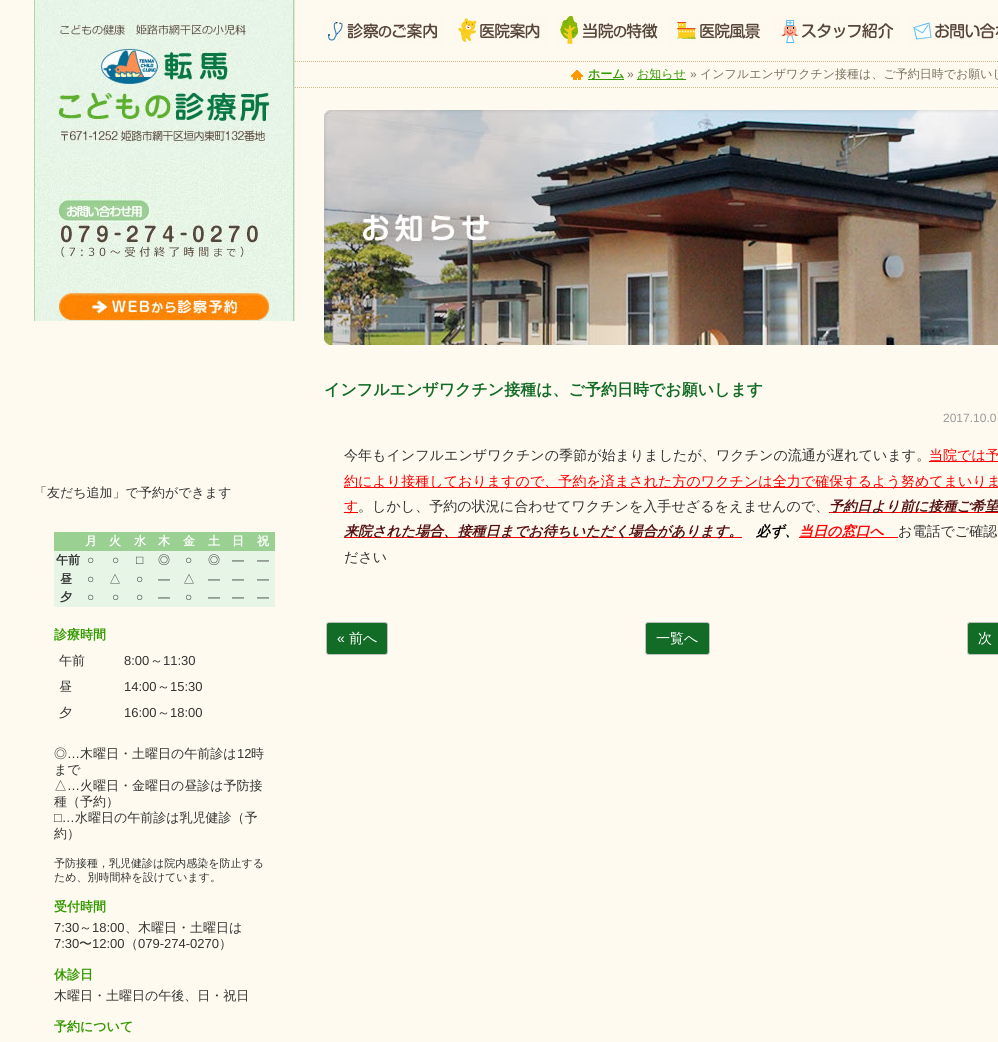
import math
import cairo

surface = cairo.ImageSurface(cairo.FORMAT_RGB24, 998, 1042)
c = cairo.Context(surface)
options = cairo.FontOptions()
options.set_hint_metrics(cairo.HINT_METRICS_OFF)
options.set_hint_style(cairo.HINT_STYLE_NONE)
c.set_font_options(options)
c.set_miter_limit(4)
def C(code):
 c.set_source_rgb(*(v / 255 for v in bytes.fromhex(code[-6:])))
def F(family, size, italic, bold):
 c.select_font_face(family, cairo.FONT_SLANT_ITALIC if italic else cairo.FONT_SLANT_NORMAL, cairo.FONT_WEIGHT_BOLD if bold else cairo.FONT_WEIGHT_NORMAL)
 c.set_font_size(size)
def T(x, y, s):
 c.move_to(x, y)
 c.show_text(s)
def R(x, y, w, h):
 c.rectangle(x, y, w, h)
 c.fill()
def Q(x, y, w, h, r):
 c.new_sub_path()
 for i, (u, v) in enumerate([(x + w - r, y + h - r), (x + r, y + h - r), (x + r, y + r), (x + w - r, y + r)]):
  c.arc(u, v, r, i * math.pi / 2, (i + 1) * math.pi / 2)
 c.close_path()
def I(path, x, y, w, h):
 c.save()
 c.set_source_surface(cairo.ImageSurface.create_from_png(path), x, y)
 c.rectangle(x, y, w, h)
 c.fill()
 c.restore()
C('fefaef')
c.paint()
I('1.png',34,0,261,158)
I('2.png',34,158,261,134)
I('3.png',34,292,261,29)
I('4.png',324,15,121,31)
I('5.png',450,15,99,31)
I('6.png',555,15,108,31)
I('7.png',669,15,99,31)
I('8.png',774,15,127,31)
I('9.png',907,15,91,31)
c.new_path()
c.move_to(295,61.5)
c.line_to(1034,61.5)
C('d2b98a')
c.set_line_width(1)
c.set_dash([1,1])
c.stroke()
c.new_path()
c.move_to(295,87.5)
c.line_to(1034,87.5)
c.stroke()
I('10.png',571,70,12,10)
C('339900')
R(588,79,36,1)
F('WenQuanYi Zen Hei',12,0,1)
T(588,78,'ホーム')
F('Liberation Sans',12,0,0)
C('79715e')
T(627,78,'»')
C('339900')
R(637,79,49,1)
F('WenQuanYi Zen Hei Medium',12,0,0)
T(637,78,'お知らせ')
F('Liberation Sans',12,0,0)
C('79715e')
T(690,78,'»')
F('WenQuanYi Zen Hei Medium',12,0,0)
T(700,78,'インフルエンザワクチン接種は、ご予約日時でお願いし')
I('11.png',324,110,674,235)
F('WenQuanYi Zen Hei Medium',13,0,0)
C('333333')
T(34,497,'「友だち追加」で予約ができます')
C('9ad092')
R(54,532,221,19)
F('WenQuanYi Zen Hei',12,0,1)
C('ffffff')
T(85,545,'月')
T(109,545,'火')
T(134,545,'水')
T(158,545,'木')
T(183,545,'金')
T(208,545,'土')
T(232,545,'日')
T(257,545,'祝')
C('e6f5e6')
R(54,551,221,19)
C('333333')
T(56,564,'午前')
F('Liberation Sans',12,0,0)
T(87,564,'○')
T(112,564,'○')
T(136,564,'□')
F('WenQuanYi Zen Hei Medium',12,0,0)
T(158,564,'◎')
F('Liberation Sans',12,0,0)
T(185,564,'○')
F('WenQuanYi Zen Hei Medium',12,0,0)
T(208,564,'◎')
F('Liberation Sans',12,0,0)
T(232,564,'—')
T(257,564,'—')
C('e6f5e6')
R(54,570,221,18)
F('WenQuanYi Zen Hei',12,0,1)
C('333333')
T(60,583,'昼')
F('Liberation Sans',12,0,0)
T(87,583,'○')
F('WenQuanYi Zen Hei Medium',12,0,0)
T(109,583,'△')
F('Liberation Sans',12,0,0)
T(136,583,'○')
T(158,583,'—')
F('WenQuanYi Zen Hei Medium',12,0,0)
T(183,583,'△')
F('Liberation Sans',12,0,0)
T(208,583,'—')
T(232,583,'—')
T(257,583,'—')
C('e6f5e6')
R(54,588,221,19)
F('WenQuanYi Zen Hei',12,0,1)
C('333333')
T(60,601,'夕')
F('Liberation Sans',12,0,0)
T(87,601,'○')
T(112,601,'○')
T(136,601,'○')
T(158,601,'—')
T(185,601,'○')
T(208,601,'—')
T(232,601,'—')
T(257,601,'—')
F('WenQuanYi Zen Hei',13,0,1)
C('339900')
T(54,639,'診療時間')
F('WenQuanYi Zen Hei Medium',13,0,0)
C('333333')
T(59,665,'午前')
F('Liberation Sans',13,0,0)
T(124,665,'8:00')
F('WenQuanYi Zen Hei Medium',13,0,0)
T(150,665,'～')
F('Liberation Sans',13,0,0)
T(163,665,'11:30')
F('WenQuanYi Zen Hei Medium',13,0,0)
T(59,691,'昼')
F('Liberation Sans',13,0,0)
T(124,691,'14:00')
F('WenQuanYi Zen Hei Medium',13,0,0)
T(157,691,'～')
F('Liberation Sans',13,0,0)
T(170,691,'15:30')
F('WenQuanYi Zen Hei Medium',13,0,0)
T(59,717,'夕')
F('Liberation Sans',13,0,0)
T(124,717,'16:00')
F('WenQuanYi Zen Hei Medium',13,0,0)
T(157,717,'～')
F('Liberation Sans',13,0,0)
T(170,717,'18:00')
F('WenQuanYi Zen Hei Medium',13,0,0)
T(54,758,'◎')
F('Liberation Sans',13,0,0)
T(67,758,'…')
F('WenQuanYi Zen Hei Medium',13,0,0)
T(80,758,'木曜日・土曜日の午前診は')
F('Liberation Sans',13,0,0)
T(237,758,'12')
F('WenQuanYi Zen Hei Medium',13,0,0)
T(251,758,'時')
T(54,774,'まで')
T(54,790,'△')
F('Liberation Sans',13,0,0)
T(67,790,'…')
F('WenQuanYi Zen Hei Medium',13,0,0)
T(80,790,'火曜日・金曜日の昼診は予防接')
T(54,806,'種（予約）')
F('Liberation Sans',13,0,0)
T(54,822,'□…')
F('WenQuanYi Zen Hei Medium',13,0,0)
T(75,822,'水曜日の午前診は乳児健診（予')
T(54,838,'約）')
F('WenQuanYi Zen Hei Medium',11,0,0)
T(54,867,'予防接種，乳児健診は院内感染を防止する')
T(54,881,'ため、別時間枠を設けています。')
F('WenQuanYi Zen Hei',13,0,1)
C('339900')
T(54,911,'受付時間')
F('Liberation Sans',13,0,0)
C('333333')
T(54,932,'7:30')
F('WenQuanYi Zen Hei Medium',13,0,0)
T(79,932,'～')
F('Liberation Sans',13,0,0)
T(92,932,'18:00')
F('WenQuanYi Zen Hei Medium',13,0,0)
T(125,932,'、木曜日・土曜日は')
F('Liberation Sans',13,0,0)
T(54,948,'7:30')
F('WenQuanYi Zen Hei Medium',13,0,0)
T(79,948,'〜')
F('Liberation Sans',13,0,0)
T(92,948,'12:00')
F('WenQuanYi Zen Hei Medium',13,0,0)
T(125,948,'（')
F('Liberation Sans',13,0,0)
T(138,948,'079-274-0270')
F('WenQuanYi Zen Hei Medium',13,0,0)
T(219,948,'）')
F('WenQuanYi Zen Hei',13,0,1)
C('339900')
T(54,979,'休診日')
F('WenQuanYi Zen Hei Medium',13,0,0)
C('333333')
T(54,1000,'木曜日・土曜日の午後、日・祝日')
F('WenQuanYi Zen Hei',13,0,1)
C('339900')
T(54,1031,'予約について')
F('WenQuanYi Zen Hei',16,0,1)
C('126c26')
T(324,395,'インフルエンザワクチン接種は、ご予約日時でお願いします')
F('Liberation Sans',12,0,0)
C('999999')
T(943,422,'2017.10.0')
F('WenQuanYi Zen Hei Medium',14.05,0,0)
C('333333')
T(344,460,'今年もインフルエンザワクチンの季節が始まりましたが、ワクチンの流通が遅れています。')
C('ff0000')
R(929,461,69,1)
T(929,460,'当院では予')
R(344,487,654,1)
T(344,486,'約により接種しておりますので、予約を済まされた方のワクチンは全力で確保するよう努めてまいりま')
R(344,512,14,1)
T(344,511,'す')
C('333333')
T(358,511,'。しかし、予約の状況に合わせてワクチンを入手せざるをえませんので、')
C('ff0000')
R(829,512,169,1)
F('WenQuanYi Zen Hei',14.05,1,1)
C('551111')
T(829,511,'予約日より前に接種ご希望')
C('ff0000')
R(344,537,398,1)
C('551111')
T(344,536,'来院された場合、接種日までお待ちいただく場合があります。')
C('000000')
T(756,536,'必ず、')
C('ff0000')
R(799,537,99,1)
T(799,536,'当日の窓口へ')
F('WenQuanYi Zen Hei Medium',14.05,0,0)
C('333333')
T(898,536,'お電話でご確認')
T(344,562,'ださい')
C('126c26')
Q(326.5,622.5,61,32,2.5)
c.fill_preserve()
C('bfbfbf')
c.set_dash([])
c.stroke()
F('Liberation Sans',14.05,0,0)
C('ffffff')
T(337,643,'«')
F('WenQuanYi Zen Hei Medium',14.05,0,0)
T(349,643,'前へ')
C('126c26')
Q(645.5,622.5,64,32,2.5)
c.fill_preserve()
C('bfbfbf')
c.stroke()
C('ffffff')
T(656,643,'一覧へ')
C('126c26')
Q(967.5,622.5,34,32,2.5)
c.fill_preserve()
C('bfbfbf')
c.stroke()
C('ffffff')
T(978,643,'次')
surface.write_to_png('o.png')
